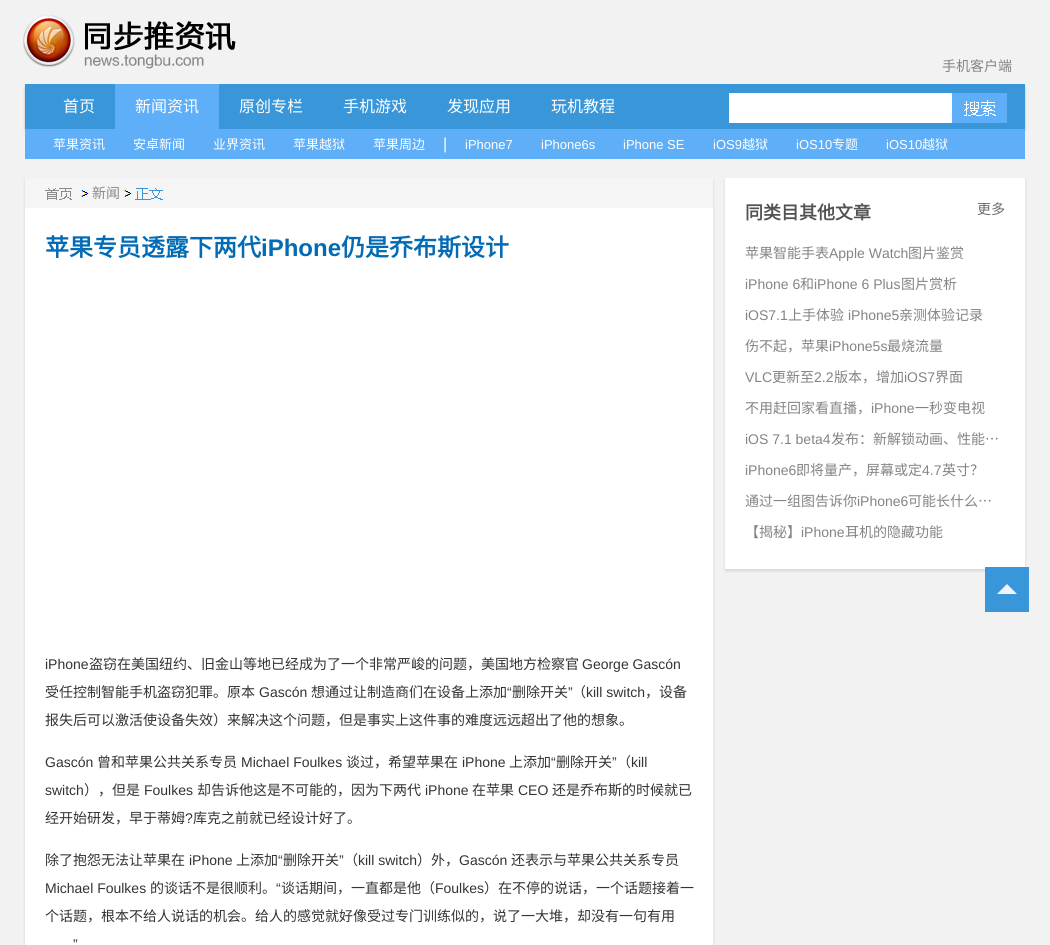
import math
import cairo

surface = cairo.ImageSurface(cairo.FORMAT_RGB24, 1050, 945)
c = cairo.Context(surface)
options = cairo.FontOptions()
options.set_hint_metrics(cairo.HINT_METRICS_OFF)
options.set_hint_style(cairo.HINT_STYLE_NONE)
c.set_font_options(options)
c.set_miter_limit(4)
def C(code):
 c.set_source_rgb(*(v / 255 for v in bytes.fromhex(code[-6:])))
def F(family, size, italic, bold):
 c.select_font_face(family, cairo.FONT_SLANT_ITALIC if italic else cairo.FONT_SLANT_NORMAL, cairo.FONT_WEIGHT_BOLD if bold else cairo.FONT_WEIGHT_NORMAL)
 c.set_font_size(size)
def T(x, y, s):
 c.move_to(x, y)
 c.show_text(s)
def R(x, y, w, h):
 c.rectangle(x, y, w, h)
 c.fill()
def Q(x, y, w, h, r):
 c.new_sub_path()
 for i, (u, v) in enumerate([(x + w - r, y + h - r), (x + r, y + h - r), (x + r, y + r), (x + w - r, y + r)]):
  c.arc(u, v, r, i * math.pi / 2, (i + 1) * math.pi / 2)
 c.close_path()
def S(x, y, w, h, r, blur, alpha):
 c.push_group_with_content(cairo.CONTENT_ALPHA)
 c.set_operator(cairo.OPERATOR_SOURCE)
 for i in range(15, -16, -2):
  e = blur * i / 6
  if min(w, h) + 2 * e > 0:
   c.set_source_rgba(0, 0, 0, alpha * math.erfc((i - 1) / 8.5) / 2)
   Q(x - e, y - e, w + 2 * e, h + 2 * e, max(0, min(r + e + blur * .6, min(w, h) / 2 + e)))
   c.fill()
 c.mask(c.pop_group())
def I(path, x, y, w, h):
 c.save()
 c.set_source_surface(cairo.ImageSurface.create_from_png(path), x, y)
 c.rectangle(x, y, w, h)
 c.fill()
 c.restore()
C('f2f2f2')
c.paint()
I('1.png',23,15,213,54)
F('Noto Sans CJK SC',14,0,0)
C('848484')
T(942,71,'手机客户端')
I('2.png',23,84,10,48)
I('3.png',33,84,984,45)
F('Noto Sans CJK SC',16,0,0)
C('ffffff')
T(63,112,'首页')
C('5eaef8')
R(115,84,104,45)
C('ffffff')
T(135,112,'新闻资讯')
T(239,112,'原创专栏')
T(343,112,'手机游戏')
T(447,112,'发现应用')
T(551,112,'玩机教程')
R(729,93,223,30)
C('5eaef8')
R(952,93,55,30)
I('4.png',964,100,32,16)
I('5.png',1017,84,10,48)
R(25,129,1000,30)
F('Noto Sans CJK SC',13,0,0)
C('ffffff')
T(53,149,'苹果资讯')
T(133,149,'安卓新闻')
T(213,149,'业界资讯')
T(293,149,'苹果越狱')
T(373,149,'苹果周边')
F('Liberation Sans',16,0,0)
T(443,149,'|')
F('Liberation Sans',13,0,0)
T(465,149,'iPhone7')
T(541,149,'iPhone6s')
T(623,149,'iPhone SE')
T(713,149,'iOS9')
F('Noto Sans CJK SC',13,0,0)
T(742,149,'越狱')
F('Liberation Sans',13,0,0)
T(796,149,'iOS10')
F('Noto Sans CJK SC',13,0,0)
T(832,149,'专题')
F('Liberation Sans',13,0,0)
T(886,149,'iOS10')
F('Noto Sans CJK SC',13,0,0)
T(922,149,'越狱')
C('d6d6d6')
S(25,180,688,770,0,1.5,1)
C('ffffff')
R(25,208,688,737)
C('f5f5f5')
R(25,178,688,30)
I('6.png',45,188,27,12)
I('7.png',81,190,8,7)
F('Noto Sans CJK SC',14,0,0)
C('8a8a8a')
T(92,198,'新闻')
I('7.png',124,190,8,7)
I('8.png',135,188,28,12)
F('Noto Sans CJK SC',24,0,1)
C('036ab4')
T(45,256,'苹果专员透露下两代')
F('Liberation Sans',24,0,1)
T(261,256,'iPhone')
F('Noto Sans CJK SC',24,0,1)
T(341,256,'仍是乔布斯设计')
F('Liberation Sans',14,0,0)
C('333333')
T(45,669,'iPhone')
F('Noto Sans CJK SC',14,0,0)
T(89,669,'盗窃在美国纽约、旧金山等地已经成为了一个非常严峻的问题，美国地方检察官')
F('Liberation Sans',14,0,0)
T(582,669,'George Gascón')
F('Noto Sans CJK SC',14,0,0)
T(45,697,'受任控制智能手机盗窃犯罪。原本')
F('Liberation Sans',14,0,0)
T(259,697,'Gascón')
F('Noto Sans CJK SC',14,0,0)
T(311,697,'想通过让制造商们在设备上添加')
F('Liberation Sans',14,0,0)
T(507,697,'“')
F('Noto Sans CJK SC',14,0,0)
T(512,697,'删除开关')
F('Liberation Sans',14,0,0)
T(568,697,'”')
F('Noto Sans CJK SC',14,0,0)
T(572,697,'（')
F('Liberation Sans',14,0,0)
T(586,697,'kill switch')
F('Noto Sans CJK SC',14,0,0)
T(645,697,'，设备')
T(45,725,'报失后可以激活使设备失效）来解决这个问题，但是事实上这件事的难度远远超出了他的想象。')
F('Liberation Sans',14,0,0)
T(45,767,'Gascón')
F('Noto Sans CJK SC',14,0,0)
T(97,767,'曾和苹果公共关系专员')
F('Liberation Sans',14,0,0)
T(241,767,'Michael Foulkes')
F('Noto Sans CJK SC',14,0,0)
T(346,767,'谈过，希望苹果在')
F('Liberation Sans',14,0,0)
T(462,767,'iPhone')
F('Noto Sans CJK SC',14,0,0)
T(509,767,'上添加')
F('Liberation Sans',14,0,0)
T(551,767,'“')
F('Noto Sans CJK SC',14,0,0)
T(556,767,'删除开关')
F('Liberation Sans',14,0,0)
T(612,767,'”')
F('Noto Sans CJK SC',14,0,0)
T(617,767,'（')
F('Liberation Sans',14,0,0)
T(631,767,'kill')
T(45,795,'switch')
F('Noto Sans CJK SC',14,0,0)
T(84,795,'），但是')
F('Liberation Sans',14,0,0)
T(144,795,'Foulkes')
F('Noto Sans CJK SC',14,0,0)
T(197,795,'却告诉他这是不可能的，因为下两代')
F('Liberation Sans',14,0,0)
T(425,795,'iPhone')
F('Noto Sans CJK SC',14,0,0)
T(472,795,'在苹果')
F('Liberation Sans',14,0,0)
T(518,795,'CEO')
F('Noto Sans CJK SC',14,0,0)
T(552,795,'还是乔布斯的时候就已')
T(45,823,'经开始研发，早于蒂姆')
F('Liberation Sans',14,0,0)
T(185,823,'?')
F('Noto Sans CJK SC',14,0,0)
T(193,823,'库克之前就已经设计好了。')
T(45,865,'除了抱怨无法让苹果在')
F('Liberation Sans',14,0,0)
T(189,865,'iPhone')
F('Noto Sans CJK SC',14,0,0)
T(236,865,'上添加')
F('Liberation Sans',14,0,0)
T(278,865,'“')
F('Noto Sans CJK SC',14,0,0)
T(283,865,'删除开关')
F('Liberation Sans',14,0,0)
T(339,865,'”')
F('Noto Sans CJK SC',14,0,0)
T(344,865,'（')
F('Liberation Sans',14,0,0)
T(358,865,'kill switch')
F('Noto Sans CJK SC',14,0,0)
T(417,865,'）外，')
F('Liberation Sans',14,0,0)
T(459,865,'Gascón')
F('Noto Sans CJK SC',14,0,0)
T(511,865,'还表示与苹果公共关系专员')
F('Liberation Sans',14,0,0)
T(45,893,'Michael Foulkes')
F('Noto Sans CJK SC',14,0,0)
T(150,893,'的谈话不是很顺利。')
F('Liberation Sans',14,0,0)
T(276,893,'“')
F('Noto Sans CJK SC',14,0,0)
T(281,893,'谈话期间，一直都是他（')
F('Liberation Sans',14,0,0)
T(435,893,'Foulkes')
F('Noto Sans CJK SC',14,0,0)
T(484,893,'）在不停的说话，一个话题接着一')
T(45,921,'个话题，根本不给人说话的机会。给人的感觉就好像受过专门训练似的，说了一大堆，却没有一句有用')
F('Liberation Sans',14,0,0)
T(73,949,'”')
C('d6d6d6')
S(725,180,300,391,0,1.5,1)
C('ffffff')
R(725,178,300,391)
F('Noto Sans CJK SC',18,0,1)
C('525252')
T(745,219,'同类目其他文章')
F('Noto Sans CJK SC',14,0,0)
C('6c6c6c')
T(977,214,'更多')
C('848484')
T(745,258,'苹果智能手表')
F('Liberation Sans',14,0,0)
T(829,258,'Apple Watch')
F('Noto Sans CJK SC',14,0,0)
T(908,258,'图片鉴赏')
F('Liberation Sans',14,0,0)
T(745,289,'iPhone 6')
F('Noto Sans CJK SC',14,0,0)
T(800,289,'和')
F('Liberation Sans',14,0,0)
T(814,289,'iPhone 6 Plus')
F('Noto Sans CJK SC',14,0,0)
T(901,289,'图片赏析')
F('Liberation Sans',14,0,0)
T(745,320,'iOS7.1')
F('Noto Sans CJK SC',14,0,0)
T(788,320,'上手体验')
F('Liberation Sans',14,0,0)
T(848,320,'iPhone5')
F('Noto Sans CJK SC',14,0,0)
T(899,320,'亲测体验记录')
T(745,351,'伤不起，苹果')
F('Liberation Sans',14,0,0)
T(829,351,'iPhone5s')
F('Noto Sans CJK SC',14,0,0)
T(887,351,'最烧流量')
F('Liberation Sans',14,0,0)
T(745,382,'VLC')
F('Noto Sans CJK SC',14,0,0)
T(772,382,'更新至')
F('Liberation Sans',14,0,0)
T(814,382,'2.2')
F('Noto Sans CJK SC',14,0,0)
T(834,382,'版本，增加')
F('Liberation Sans',14,0,0)
T(904,382,'iOS7')
F('Noto Sans CJK SC',14,0,0)
T(935,382,'界面')
T(745,413,'不用赶回家看直播，')
F('Liberation Sans',14,0,0)
T(871,413,'iPhone')
F('Noto Sans CJK SC',14,0,0)
T(915,413,'一秒变电视')
F('Liberation Sans',14,0,0)
T(745,444,'iOS 7.1 beta4')
F('Noto Sans CJK SC',14,0,0)
T(831,444,'发布：新解锁动画、性能…')
F('Liberation Sans',14,0,0)
T(745,475,'iPhone6')
F('Noto Sans CJK SC',14,0,0)
T(796,475,'即将量产，屏幕或定')
F('Liberation Sans',14,0,0)
T(922,475,'4.7')
F('Noto Sans CJK SC',14,0,0)
T(942,475,'英寸？')
T(745,506,'通过一组图告诉你')
F('Liberation Sans',14,0,0)
T(857,506,'iPhone6')
F('Noto Sans CJK SC',14,0,0)
T(908,506,'可能长什么…')
T(745,537,'【揭秘】')
F('Liberation Sans',14,0,0)
T(801,537,'iPhone')
F('Noto Sans CJK SC',14,0,0)
T(845,537,'耳机的隐藏功能')
I('9.png',985,567,44,45)
surface.write_to_png('o.png')
